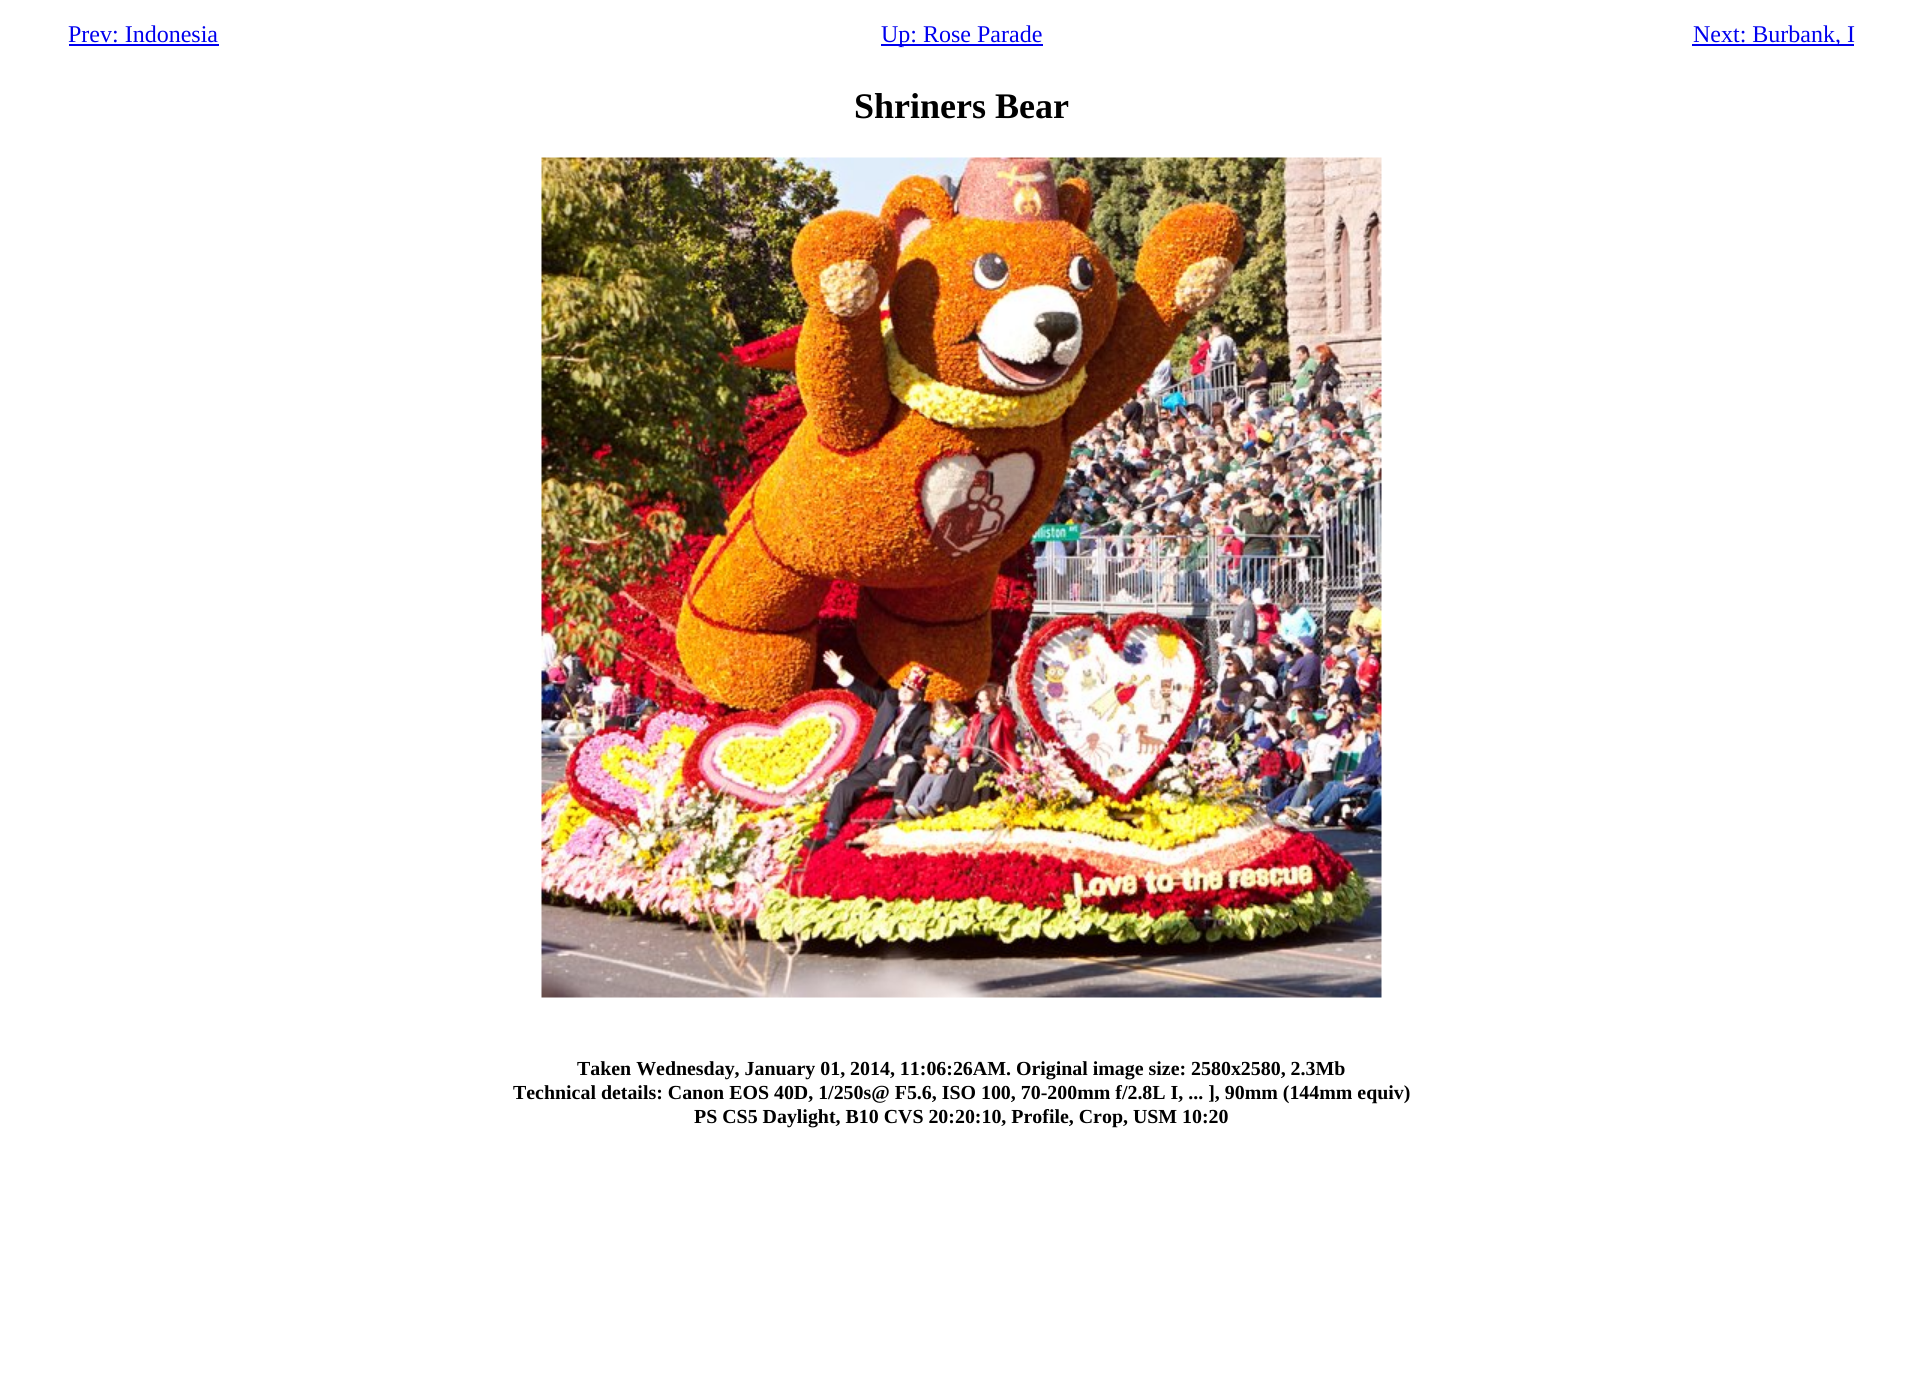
import math
import cairo

surface = cairo.ImageSurface(cairo.FORMAT_RGB24, 1922, 1391)
c = cairo.Context(surface)
options = cairo.FontOptions()
options.set_hint_metrics(cairo.HINT_METRICS_OFF)
options.set_hint_style(cairo.HINT_STYLE_NONE)
c.set_font_options(options)
c.set_miter_limit(4)
def C(code):
 c.set_source_rgb(*(v / 255 for v in bytes.fromhex(code[-6:])))
def F(family, size, italic, bold):
 c.select_font_face(family, cairo.FONT_SLANT_ITALIC if italic else cairo.FONT_SLANT_NORMAL, cairo.FONT_WEIGHT_BOLD if bold else cairo.FONT_WEIGHT_NORMAL)
 c.set_font_size(size)
def T(x, y, s):
 c.move_to(x, y)
 c.show_text(s)
def R(x, y, w, h):
 c.rectangle(x, y, w, h)
 c.fill()
def I(path, x, y, w, h):
 c.save()
 c.set_source_surface(cairo.ImageSurface.create_from_png(path), x, y)
 c.rectangle(x, y, w, h)
 c.fill()
 c.restore()
C('ffffff')
c.paint()
F('Liberation Serif',24,0,0)
C('0000ee')
T(68,42,'Prev: Indonesia')
R(69,44,150,2)
R(881,44,162,2)
T(881,42,'Up: Rose Parade')
R(1692,44,162,2)
T(1693,42,'Next: Burbank, I')
F('Liberation Serif',36,0,1)
C('000000')
T(854,118,'Shriners Bear')
I('1.png',541,157,841,841)
F('Liberation Serif',19.9,0,1)
T(577,1075,'Taken Wednesday, January 01, 2014, 11:06:26AM. Original image size: 2580x2580, 2.3Mb')
T(513,1099,'Technical details: Canon EOS 40D, 1/250s@ F5.6, ISO 100, 70-200mm f/2.8L I, ... ], 90mm (144mm equiv)')
T(694,1123,'PS CS5 Daylight, B10 CVS 20:20:10, Profile, Crop, USM 10:20')
surface.write_to_png('o.png')
